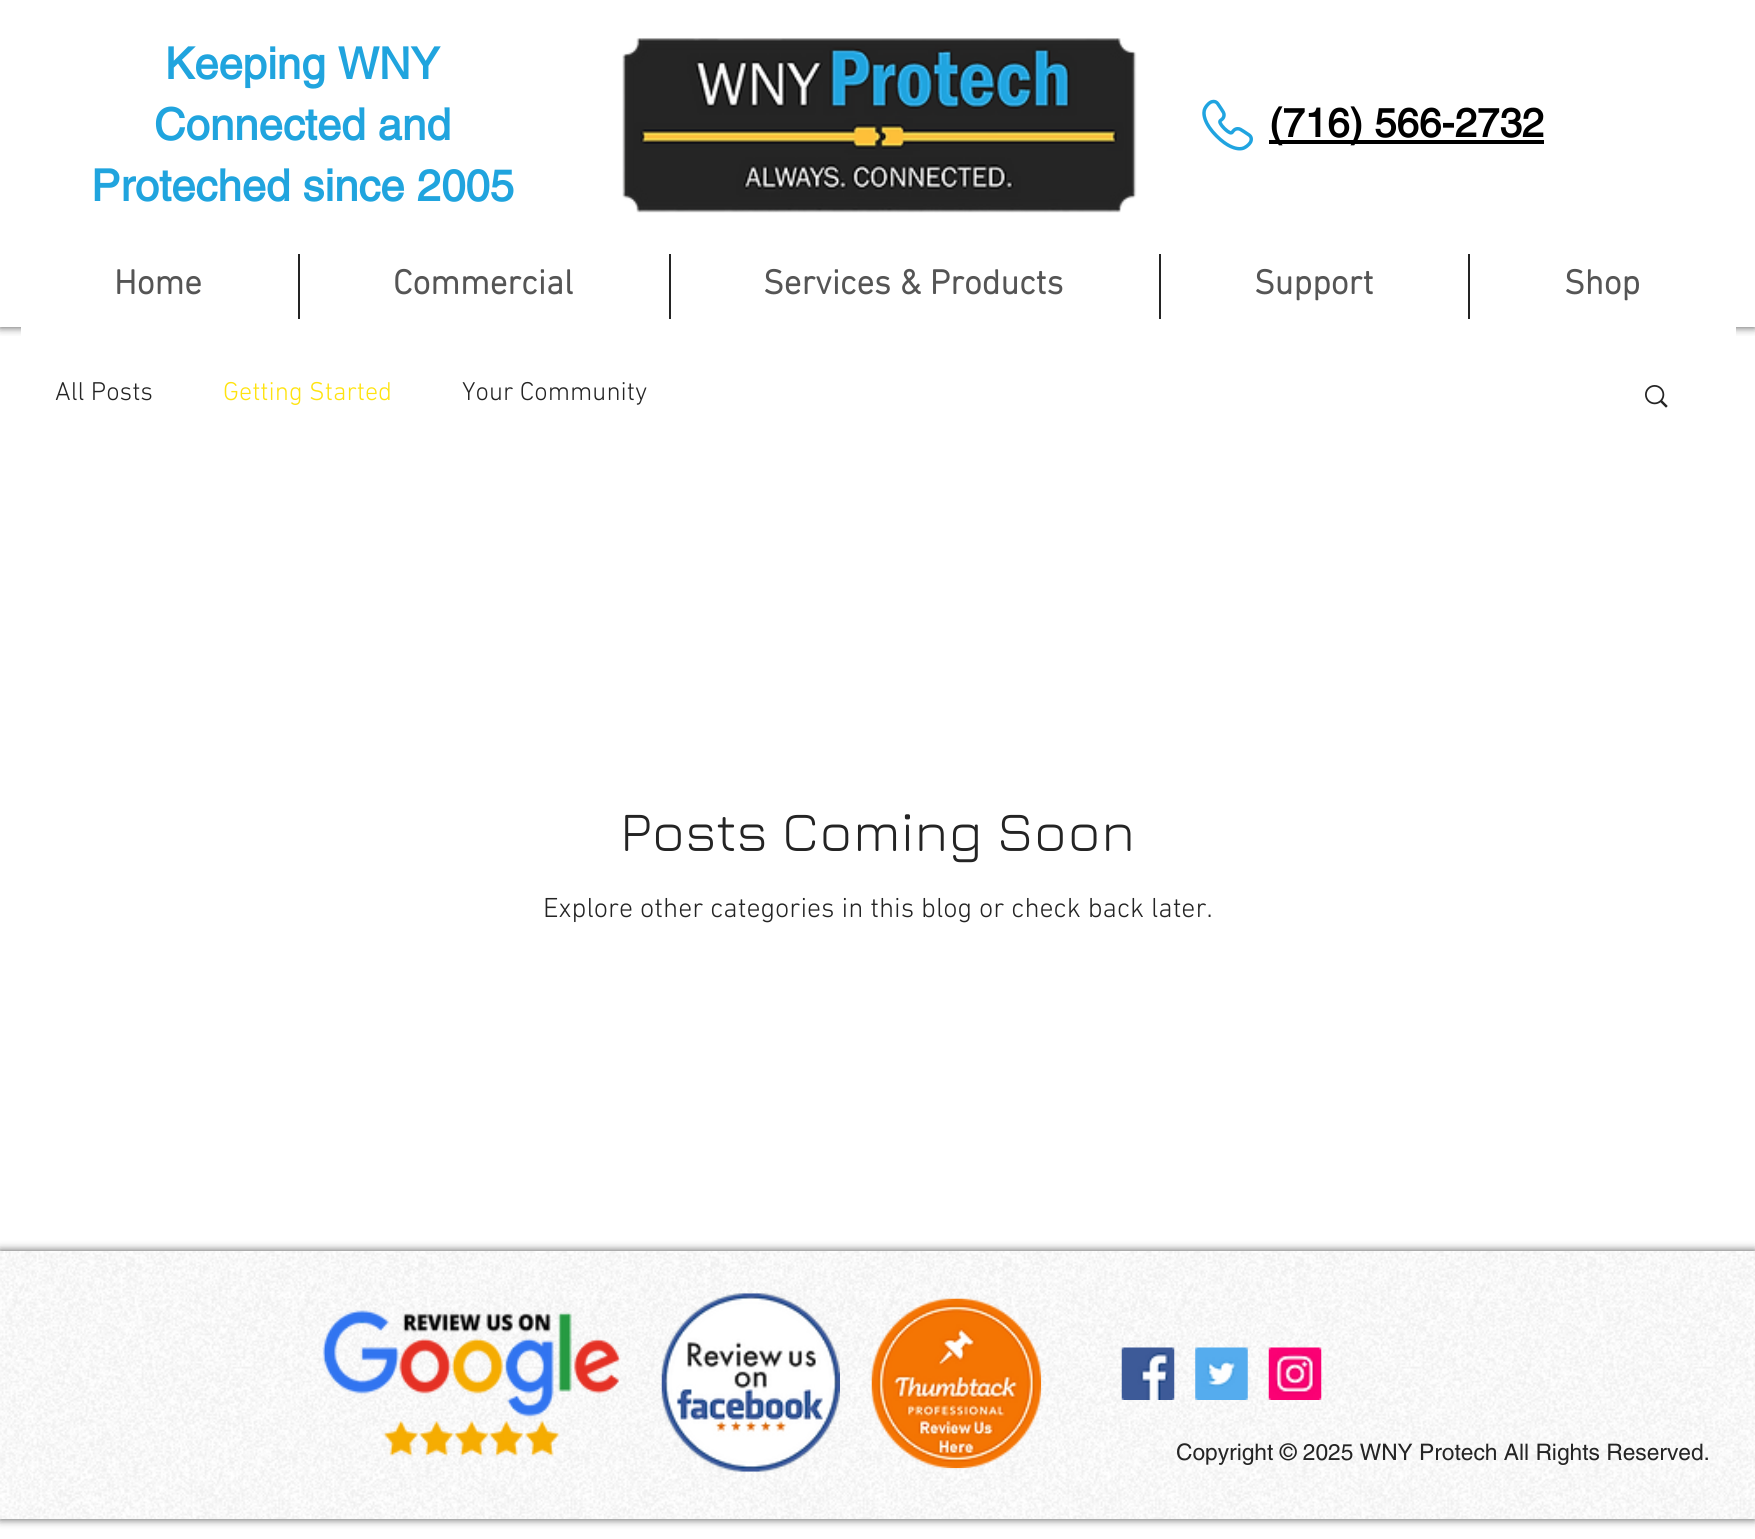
import math
import cairo

surface = cairo.ImageSurface(cairo.FORMAT_RGB24, 1755, 1539)
c = cairo.Context(surface)
options = cairo.FontOptions()
options.set_hint_metrics(cairo.HINT_METRICS_OFF)
options.set_hint_style(cairo.HINT_STYLE_NONE)
c.set_font_options(options)
c.set_miter_limit(4)
def C(code):
 c.set_source_rgb(*(v / 255 for v in bytes.fromhex(code[-6:])))
def F(family, size, italic, bold):
 c.select_font_face(family, cairo.FONT_SLANT_ITALIC if italic else cairo.FONT_SLANT_NORMAL, cairo.FONT_WEIGHT_BOLD if bold else cairo.FONT_WEIGHT_NORMAL)
 c.set_font_size(size)
def T(x, y, s):
 c.move_to(x, y)
 c.show_text(s)
def R(x, y, w, h):
 c.rectangle(x, y, w, h)
 c.fill()
def Q(x, y, w, h, r):
 c.new_sub_path()
 for i, (u, v) in enumerate([(x + w - r, y + h - r), (x + r, y + h - r), (x + r, y + r), (x + w - r, y + r)]):
  c.arc(u, v, r, i * math.pi / 2, (i + 1) * math.pi / 2)
 c.close_path()
def S(x, y, w, h, r, blur, alpha):
 c.push_group_with_content(cairo.CONTENT_ALPHA)
 c.set_operator(cairo.OPERATOR_SOURCE)
 for i in range(15, -16, -2):
  e = blur * i / 6
  if min(w, h) + 2 * e > 0:
   c.set_source_rgba(0, 0, 0, alpha * math.erfc((i - 1) / 8.5) / 2)
   Q(x - e, y - e, w + 2 * e, h + 2 * e, max(0, min(r + e + blur * .6, min(w, h) / 2 + e)))
   c.fill()
 c.mask(c.pop_group())
def I(path, x, y, w, h):
 c.save()
 c.set_source_surface(cairo.ImageSurface.create_from_png(path), x, y)
 c.rectangle(x, y, w, h)
 c.fill()
 c.restore()
C('ffffff')
c.paint()
c.save()
c.rectangle(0,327,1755,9)
c.clip()
C('000000')
S(0,0,1755,327,0,4.5,.7)
c.restore()
F('helvetica',43.75,0,1)
C('20a4de')
T(165,79,'Keeping WNY')
T(154,140,'Connected and')
T(91,201,'Proteched since 2005')
I('1.png',622,38,515,175)
I('2.png',1202,99,51,52)
C('000000')
R(1269,140,275,4)
F('helvetica',40.25,0,1)
T(1269,137,'(716) 566-2732')
F('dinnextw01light',35,0,1)
C('555555')
T(114,294,'Home')
C('242424')
R(298,254,2,65)
C('555555')
T(393,294,'Commercial')
C('242424')
R(669,254,2,65)
C('555555')
T(763,294,'Services & Products')
C('242424')
R(1159,254,2,65)
C('555555')
T(1254,294,'Support')
C('242424')
R(1468,254,2,65)
C('555555')
T(1564,294,'Shop')
C('ffffff')
R(21,327,1715,10)
F('dinnextw01light Light',26.25,0,0)
C('242424')
T(55,400,'All Posts')
C('ffe30f')
T(223,400,'Getting Started')
C('242424')
T(462,400,'Your Community')
I('3.png',1645,385,23,23)
F('Jura',56,0,0)
T(620,851,'Posts Coming Soon')
F('dinnextw01light Light',28,0,0)
T(543,917,'Explore other categories in this blog or check back later.')
C('000000')
S(0,1251,1755,268,0,4.5,.7)
C('ffffff')
R(0,1251,1755,268)
I('4.png',0,1251,1755,268)
I('5.png',322,1310,299,147)
I('6.png',661,1293,179,179)
I('7.png',871,1298,171,171)
I('8.png',1121,1347,54,53)
I('9.png',1195,1347,53,53)
I('10.png',1268,1347,54,53)
F('helvetica',22.75,0,0)
C('242424')
T(1176,1460,'Copyright © 2025 WNY Protech All Rights Reserved.')
surface.write_to_png('o.png')
